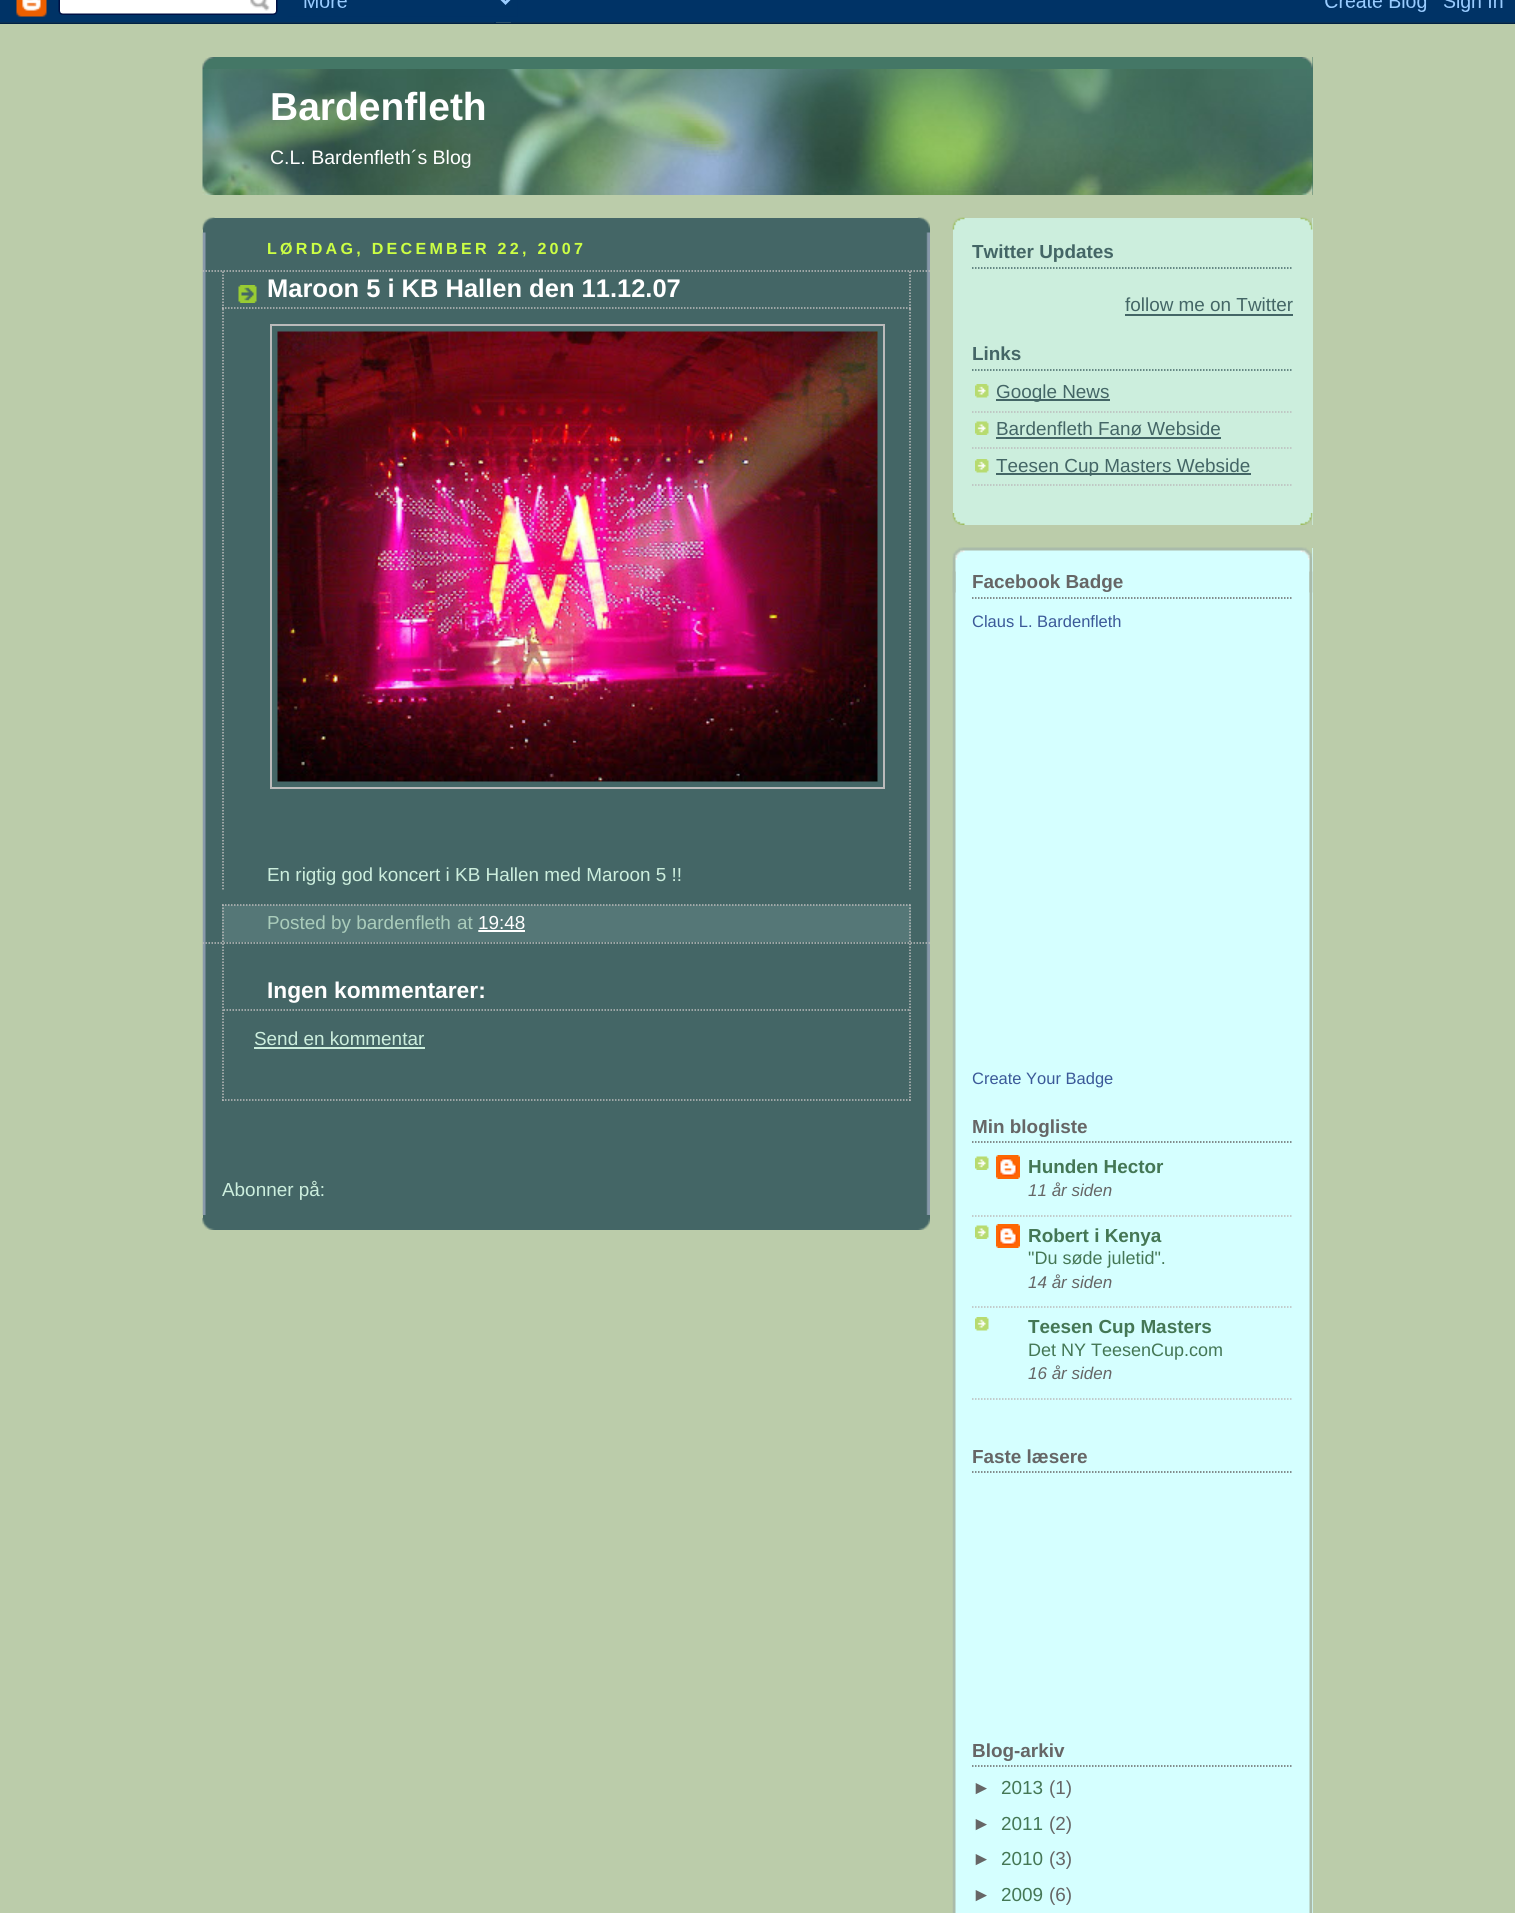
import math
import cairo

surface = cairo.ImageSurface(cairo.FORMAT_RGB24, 1515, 1913)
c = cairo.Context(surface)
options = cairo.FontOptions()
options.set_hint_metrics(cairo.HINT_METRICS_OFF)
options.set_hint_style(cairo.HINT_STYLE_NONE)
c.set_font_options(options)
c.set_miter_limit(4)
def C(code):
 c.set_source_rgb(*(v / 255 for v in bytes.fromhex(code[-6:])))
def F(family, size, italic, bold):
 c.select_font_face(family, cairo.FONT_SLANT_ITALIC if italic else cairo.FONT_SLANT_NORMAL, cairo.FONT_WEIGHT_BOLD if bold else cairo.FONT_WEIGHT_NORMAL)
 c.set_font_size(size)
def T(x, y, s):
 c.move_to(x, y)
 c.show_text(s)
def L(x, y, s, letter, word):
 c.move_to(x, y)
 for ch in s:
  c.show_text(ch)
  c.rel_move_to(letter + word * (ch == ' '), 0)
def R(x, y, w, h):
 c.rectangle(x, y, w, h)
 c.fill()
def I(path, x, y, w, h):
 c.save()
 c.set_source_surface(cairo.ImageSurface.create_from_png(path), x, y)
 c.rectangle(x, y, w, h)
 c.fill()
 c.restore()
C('bbccaa')
c.paint()
I('1.png',0,0,1515,24)
C('447766')
R(203,57,1110,138)
I('2.png',202,57,1111,12)
I('3.png',202,69,1111,126)
F('Liberation Sans',39,0,1)
C('ffffff')
T(270,120,'Bardenfleth')
F('Liberation Sans',19.5,0,0)
T(270,164,'C.L. Bardenfleth´s Blog')
C('446666')
R(203,218,727,1012)
I('4.png',202,1217,728,13)
I('5.png',202,217,728,13)
I('6.png',202,232,728,983)
F('Liberation Sans',16.1,0,1)
C('ccff44')
L(267,254,'LØRDAG, DECEMBER 22, 2007',3.25,0)
c.new_path()
c.move_to(202.5,271)
c.line_to(930,271)
C('bbbbbb')
c.set_line_width(1.5)
c.set_dash([1.5,1.5])
c.stroke()
c.new_path()
c.move_to(202.5,943)
c.line_to(930,943)
c.stroke()
I('7.png',238,285,19,18)
c.new_path()
c.move_to(910,271.5)
c.line_to(910,309)
c.stroke()
c.new_path()
c.move_to(222,308)
c.line_to(910.5,308)
c.stroke()
c.new_path()
c.move_to(223,271.5)
c.line_to(223,309)
c.stroke()
F('Liberation Sans',25.5,0,1)
C('ffffff')
T(267,297,'Maroon 5 i KB Hallen den 11.12.07')
c.new_path()
c.move_to(910,309)
c.line_to(910,891)
C('bbbbbb')
c.stroke()
c.new_path()
c.move_to(223,309)
c.line_to(223,891)
c.stroke()
c.rectangle(271,325,613,463)
c.set_line_width(2)
c.set_dash([])
c.stroke()
I('8.png',277,331,601,451)
F('Liberation Sans',18.9,0,0)
C('cceedd')
T(267,881,'En rigtig god koncert i KB Hallen med Maroon 5 !!')
C('557777')
R(222,905,689,37)
c.new_path()
c.move_to(222,905)
c.line_to(910.5,905)
C('bbbbbb')
c.set_line_width(1.5)
c.set_dash([1.5,1.5])
c.stroke()
c.new_path()
c.move_to(910,904.5)
c.line_to(910,942)
c.stroke()
c.new_path()
c.move_to(223,904.5)
c.line_to(223,942)
c.stroke()
C('aaccbb')
T(267,929,'Posted by bardenfleth')
T(457,929,'at')
C('ffffff')
T(478,929,'19:48')
c.new_path()
c.move_to(478,931)
c.line_to(525.5,931)
c.stroke()
R(479,930,46,2)
c.new_path()
c.move_to(910,943.5)
c.line_to(910,1101)
C('bbbbbb')
c.stroke()
c.new_path()
c.move_to(222,1100)
c.line_to(910.5,1100)
c.stroke()
c.new_path()
c.move_to(223,943.5)
c.line_to(223,1101)
c.stroke()
c.new_path()
c.move_to(223.5,1010)
c.line_to(909,1010)
c.stroke()
F('Liberation Sans',22.75,0,1)
C('ffffff')
T(267,998,'Ingen kommentarer:')
F('Liberation Sans',18.9,0,0)
C('cceedd')
T(254,1045,'Send en kommentar')
R(254,1047,171,2)
T(222,1196,'Abonner på:')
R(953,218,360,307)
I('9.png',952,513,361,12)
I('10.png',952,217,361,13)
c.new_path()
c.move_to(972,268)
c.line_to(1293,268)
C('446666')
c.stroke()
F('Liberation Sans',18.9,0,1)
T(972,258,'Twitter Updates')
F('Liberation Sans',18.9,0,0)
T(1125,311,'follow me on Twitter')
R(1125,314,168,2)
c.new_path()
c.move_to(972,370)
c.line_to(1293,370)
c.stroke()
F('Liberation Sans',18.9,0,1)
T(972,360,'Links')
I('11.png',975,384,14,14)
c.new_path()
c.move_to(972,412)
c.line_to(1293,412)
C('bbbbbb')
c.stroke()
C('446666')
R(996,399,114,2)
F('Liberation Sans',18.9,0,0)
T(996,398,'Google News')
I('12.png',975,421,14,14)
c.new_path()
c.move_to(972,448)
c.line_to(1293,448)
C('bbbbbb')
c.stroke()
C('446666')
T(996,435,'Bardenfleth Fanø Webside')
R(996,437,225,2)
I('11.png',975,459,14,14)
c.new_path()
c.move_to(972,485)
c.line_to(1293,485)
C('bbbbbb')
c.stroke()
C('446666')
R(996,473,255,2)
T(996,472,'Teesen Cup Masters Webside')
C('d5ffff')
R(955,548,358,1365)
I('13.png',952,547,361,46)
I('14.png',952,571,361,1342)
c.new_path()
c.move_to(972,598)
c.line_to(1293,598)
C('666666')
c.stroke()
F('Liberation Sans',18.9,0,1)
T(972,588,'Facebook Badge')
F('Liberation Sans',16.5,0,0)
C('3b5998')
T(972,627,'Claus L. Bardenfleth')
T(972,1084,'Create Your Badge')
c.new_path()
c.move_to(972,1142)
c.line_to(1293,1142)
C('666666')
c.stroke()
F('Liberation Sans',18.9,0,1)
T(972,1133,'Min blogliste')
I('15.png',975,1156,14,14)
c.new_path()
c.move_to(972,1216)
c.line_to(1293,1216)
C('bbbbbb')
c.stroke()
I('16.png',996,1155,24,24)
C('447755')
T(1028,1173,'Hunden Hector')
F('Liberation Sans',17,1,0)
C('666666')
T(1028,1196,'11 år siden')
I('15.png',975,1225,14,14)
c.new_path()
c.move_to(972,1307)
c.line_to(1293,1307)
C('bbbbbb')
c.stroke()
I('16.png',996,1224,24,24)
F('Liberation Sans',18.9,0,1)
C('447755')
T(1028,1242,'Robert i Kenya')
F('Liberation Sans',18,0,0)
T(1028,1264,'"Du søde juletid".')
F('Liberation Sans',17,1,0)
C('666666')
T(1028,1288,'14 år siden')
I('17.png',975,1317,14,14)
c.new_path()
c.move_to(972,1399)
c.line_to(1293,1399)
C('bbbbbb')
c.stroke()
F('Liberation Sans',18.9,0,1)
C('447755')
T(1028,1333,'Teesen Cup Masters')
F('Liberation Sans',18,0,0)
T(1028,1356,'Det NY TeesenCup.com')
F('Liberation Sans',17,1,0)
C('666666')
T(1028,1379,'16 år siden')
c.new_path()
c.move_to(972,1472)
c.line_to(1293,1472)
c.stroke()
F('Liberation Sans',18.9,0,1)
T(972,1463,'Faste læsere')
c.new_path()
c.move_to(972,1766)
c.line_to(1293,1766)
c.stroke()
T(972,1757,'Blog-arkiv')
F('Liberation Sans',18.9,0,0)
T(972,1794,'►')
C('447755')
T(1001,1794,'2013')
C('666666')
T(1049,1794,'(1)')
T(972,1830,'►')
C('447755')
T(1001,1830,'2011')
C('666666')
T(1049,1830,'(2)')
T(972,1865,'►')
C('447755')
T(1001,1865,'2010')
C('666666')
T(1049,1865,'(3)')
T(972,1901,'►')
C('447755')
T(1001,1901,'2009')
C('666666')
T(1049,1901,'(6)')
surface.write_to_png('o.png')
